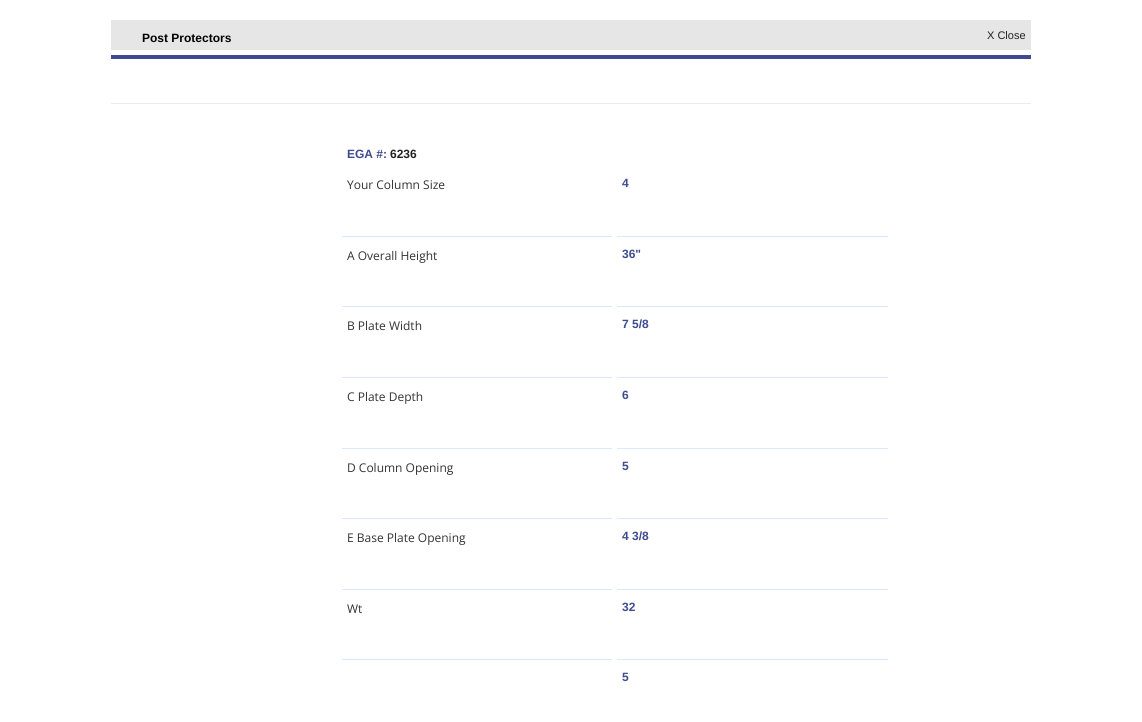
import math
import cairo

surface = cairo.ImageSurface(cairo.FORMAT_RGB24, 1142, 722)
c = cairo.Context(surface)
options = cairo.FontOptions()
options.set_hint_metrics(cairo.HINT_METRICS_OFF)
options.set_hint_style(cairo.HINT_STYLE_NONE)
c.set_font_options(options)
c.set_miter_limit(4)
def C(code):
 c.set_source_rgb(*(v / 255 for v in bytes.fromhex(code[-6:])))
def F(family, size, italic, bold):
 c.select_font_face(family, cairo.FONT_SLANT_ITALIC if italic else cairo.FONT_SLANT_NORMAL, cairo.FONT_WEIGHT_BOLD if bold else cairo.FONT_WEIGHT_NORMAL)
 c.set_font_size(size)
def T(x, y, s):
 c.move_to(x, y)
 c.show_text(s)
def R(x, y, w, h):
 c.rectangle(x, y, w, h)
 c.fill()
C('ffffff')
c.paint()
C('e6e6e6')
R(111,20,920,30)
F('Liberation Sans',12,0,1)
C('000000')
T(142,42,'Post Protectors')
F('Liberation Sans',11,0,0)
C('222222')
T(987,39,'X Close')
C('3e4b91')
R(111,55,920,4)
C('ececec')
R(111,103,920,1)
F('Liberation Sans',12,0,1)
C('3e4b91')
T(347,158,'EGA #:')
C('222222')
T(390,158,'6236')
C('dae9fe')
R(342,236,270,1)
F('Open Sans',12,0,0)
C('333333')
T(347,189,'Your Column Size')
C('dae9fe')
R(617,236,271,1)
F('Liberation Sans',12,0,1)
C('3e4b91')
T(622,187,'4')
C('dae9fe')
R(342,306,270,1)
F('Open Sans',12,0,0)
C('333333')
T(347,260,'A Overall Height')
C('dae9fe')
R(617,306,271,1)
F('Liberation Sans',12,0,1)
C('3e4b91')
T(622,258,'36"')
C('dae9fe')
R(342,377,270,1)
F('Open Sans',12,0,0)
C('333333')
T(347,330,'B Plate Width')
C('dae9fe')
R(617,377,271,1)
F('Liberation Sans',12,0,1)
C('3e4b91')
T(622,328,'7 5/8')
C('dae9fe')
R(342,448,270,1)
F('Open Sans',12,0,0)
C('333333')
T(347,401,'C Plate Depth')
C('dae9fe')
R(617,448,271,1)
F('Liberation Sans',12,0,1)
C('3e4b91')
T(622,399,'6')
C('dae9fe')
R(342,518,270,1)
F('Open Sans',12,0,0)
C('333333')
T(347,472,'D Column Opening')
C('dae9fe')
R(617,518,271,1)
F('Liberation Sans',12,0,1)
C('3e4b91')
T(622,470,'5')
C('dae9fe')
R(342,589,270,1)
F('Open Sans',12,0,0)
C('333333')
T(347,542,'E Base Plate Opening')
C('dae9fe')
R(617,589,271,1)
F('Liberation Sans',12,0,1)
C('3e4b91')
T(622,540,'4 3/8')
C('dae9fe')
R(342,659,270,1)
F('Open Sans',12,0,0)
C('333333')
T(347,613,'Wt')
C('dae9fe')
R(617,659,271,1)
F('Liberation Sans',12,0,1)
C('3e4b91')
T(622,611,'32')
T(622,681,'5')
surface.write_to_png('o.png')
